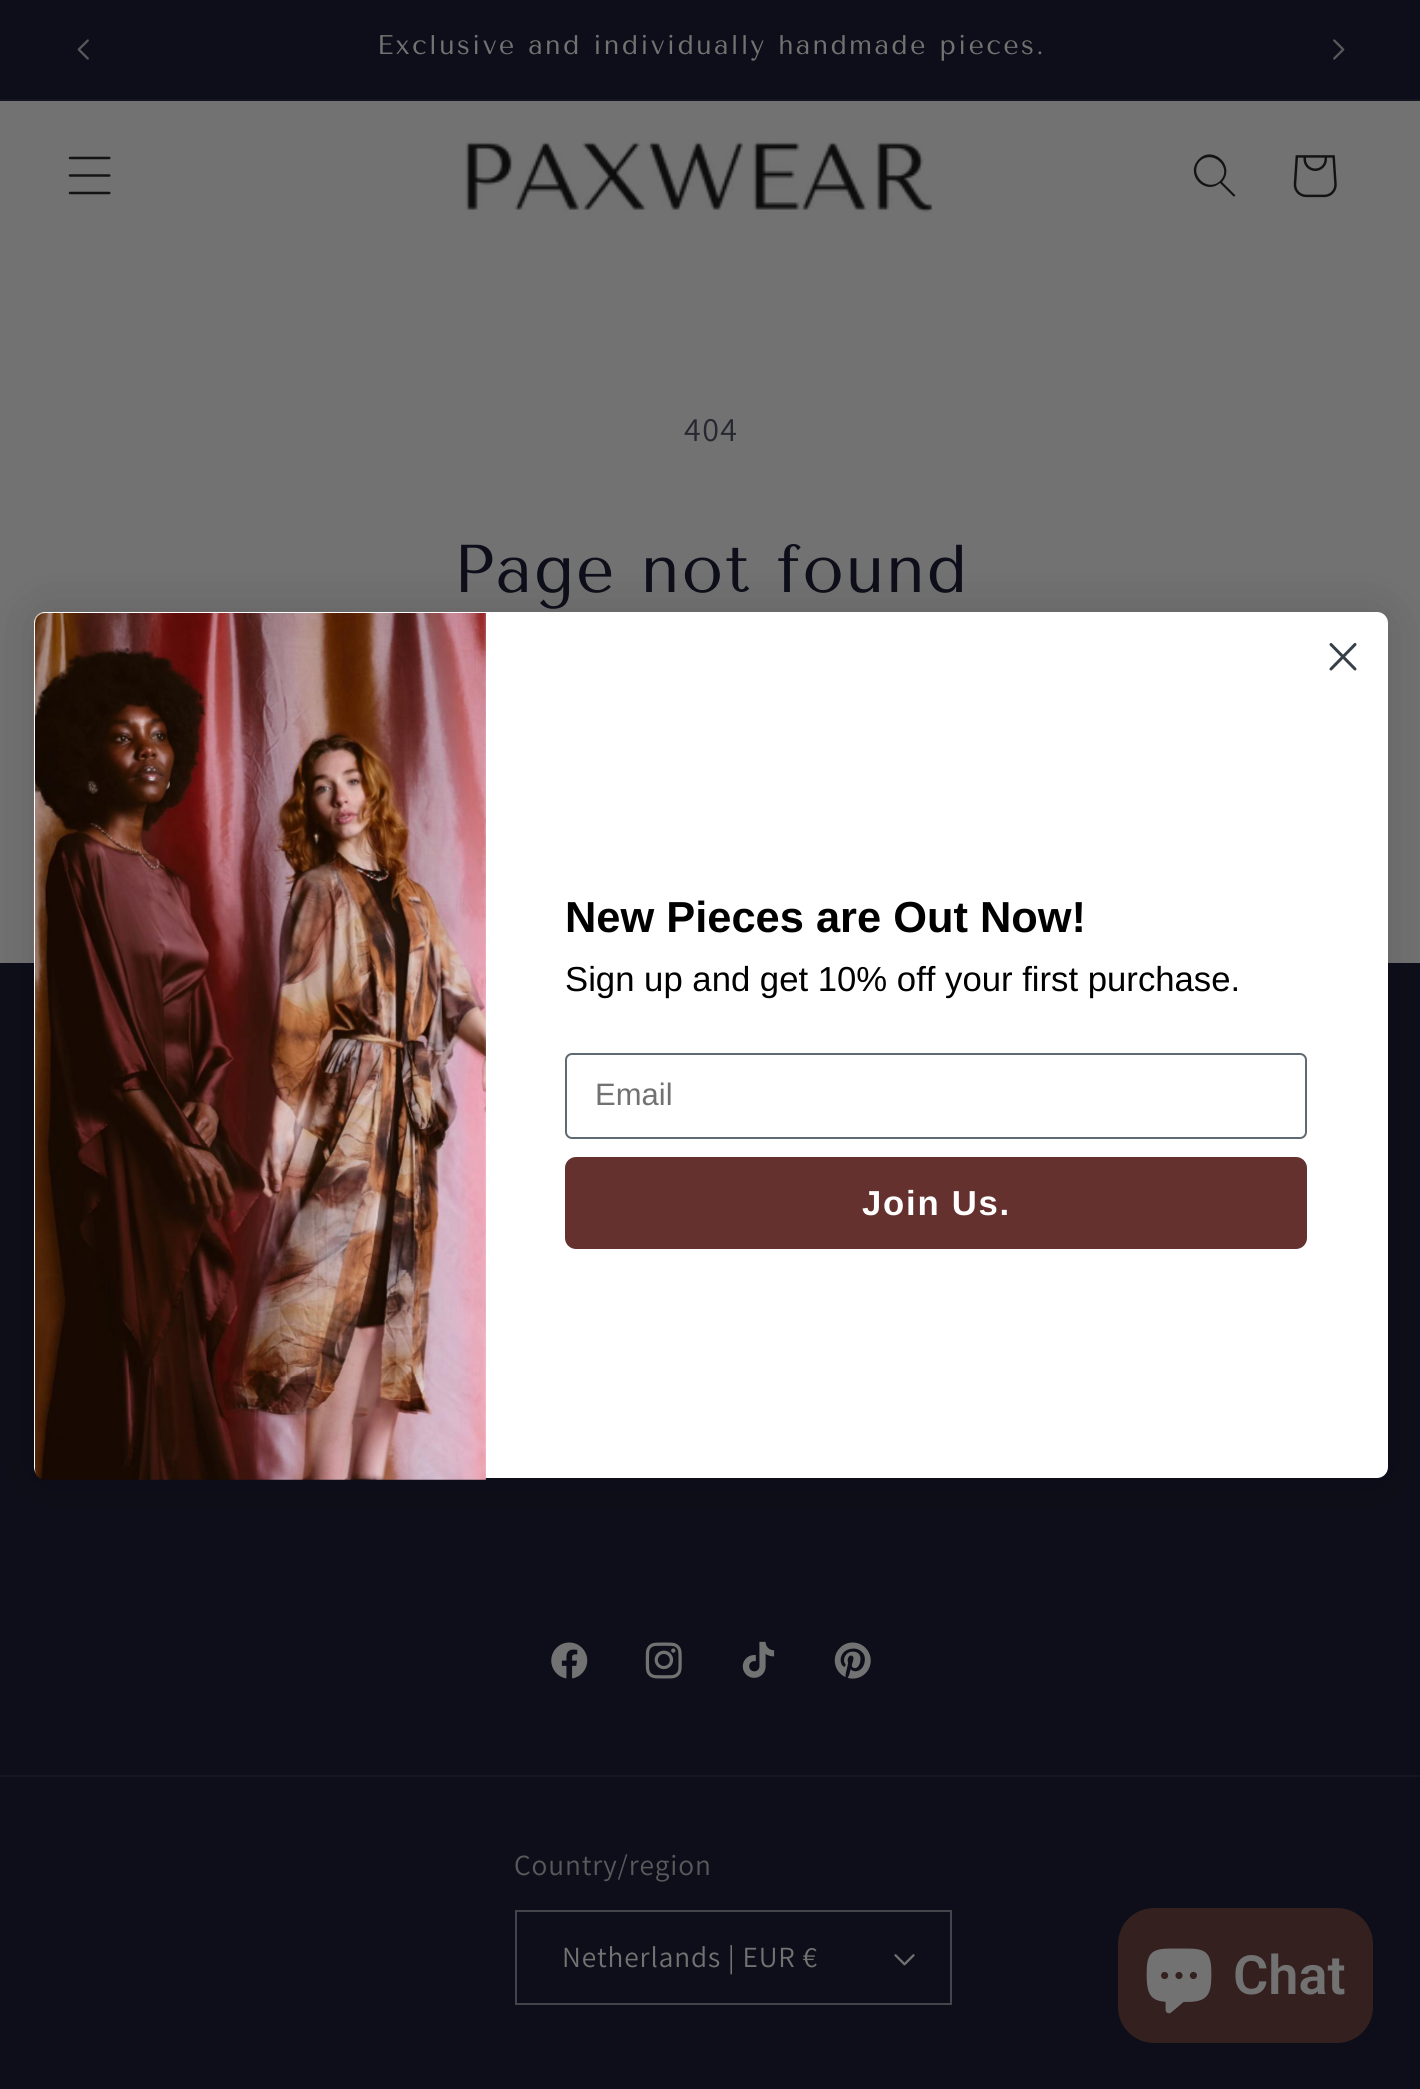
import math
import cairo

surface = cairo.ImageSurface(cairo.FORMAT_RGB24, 1420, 2089)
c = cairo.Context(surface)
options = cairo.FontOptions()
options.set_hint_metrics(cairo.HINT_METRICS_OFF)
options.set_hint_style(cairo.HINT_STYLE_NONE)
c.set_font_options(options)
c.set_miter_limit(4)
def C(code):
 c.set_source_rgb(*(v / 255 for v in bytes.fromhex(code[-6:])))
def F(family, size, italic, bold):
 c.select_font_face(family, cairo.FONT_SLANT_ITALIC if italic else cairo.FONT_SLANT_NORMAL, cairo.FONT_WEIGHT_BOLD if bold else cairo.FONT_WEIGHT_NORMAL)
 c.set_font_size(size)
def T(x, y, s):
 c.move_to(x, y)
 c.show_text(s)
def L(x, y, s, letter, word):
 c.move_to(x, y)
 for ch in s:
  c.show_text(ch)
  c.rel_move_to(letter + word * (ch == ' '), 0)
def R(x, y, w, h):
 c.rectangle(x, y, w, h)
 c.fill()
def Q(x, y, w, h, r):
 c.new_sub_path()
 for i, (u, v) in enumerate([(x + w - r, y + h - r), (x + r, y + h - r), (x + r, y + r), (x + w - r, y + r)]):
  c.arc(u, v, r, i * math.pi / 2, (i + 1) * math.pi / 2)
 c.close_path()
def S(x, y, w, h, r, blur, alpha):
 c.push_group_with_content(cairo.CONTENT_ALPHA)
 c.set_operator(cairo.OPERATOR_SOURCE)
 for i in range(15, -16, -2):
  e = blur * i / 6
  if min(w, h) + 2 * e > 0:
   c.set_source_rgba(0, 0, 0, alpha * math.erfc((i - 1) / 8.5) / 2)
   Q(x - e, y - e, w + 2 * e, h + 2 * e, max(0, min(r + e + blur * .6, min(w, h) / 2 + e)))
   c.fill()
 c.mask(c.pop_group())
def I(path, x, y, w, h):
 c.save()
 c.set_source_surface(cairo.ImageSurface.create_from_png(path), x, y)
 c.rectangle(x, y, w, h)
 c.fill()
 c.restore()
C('727272')
c.paint()
C('0d0e19')
R(0,0,1420,99)
C('151620')
R(0,99,1420,2)
I('1.png',77,39,12,21)
F('Tenor Sans',27,0,0)
C('727272')
L(377,54,'Exclusive and individually handmade pieces.',2.25,0)
I('2.png',1333,39,12,21)
I('3.png',68,156,43,39)
I('4.png',465,141,468,72)
C('131313')
c.set_fill_rule(cairo.FILL_RULE_EVEN_ODD)
c.new_path()
c.move_to(1220,181)
c.curve_to(1207,193,1188,174,1200,161)
c.curve_to(1213,149,1233,168,1220,181)
c.move_to(1220,183)
c.curve_to(1205,196,1184,174,1199,159)
c.curve_to(1213,145,1236,166,1222,182)
c.line_to(1235,195)
c.curve_to(1236,196,1234,197,1233,196)
c.close_path()
c.fill()
I('5.png',1293,155,44,43)
F('Assistant',34,0,0)
C('262730')
L(684,441,'404',1.4,0)
F('Tenor Sans',67.5,0,0)
C('0d0e19')
L(453,592,'Page not found',1.4,0)
R(0,963,1420,1126)
C('000000')
S(34,612,1354,866,11,26,.15)
C('ffffff')
Q(34,612,1354,866,11)
c.fill()
c.new_path()
c.move_to(1331,644.5)
c.line_to(1355,669)
c.move_to(1331,669)
c.line_to(1355,644.5)
c.close_path()
C('373f47')
c.set_line_width(3)
c.set_line_cap(cairo.LINE_CAP_ROUND)
c.set_line_join(cairo.LINE_JOIN_ROUND)
c.stroke()
I('6.png',35,613,451,867)
F('Liberation Sans',43.4,0,1)
C('000000')
T(565,932,'New Pieces are Out Now!')
F('Liberation Sans',34.7,0,0)
T(565,991,'Sign up and get 10% off your first purchase.')
Q(566,1054,740,84,6)
C('606a72')
c.set_line_width(2)
c.set_line_cap(cairo.LINE_CAP_BUTT)
c.set_line_join(cairo.LINE_JOIN_MITER)
c.stroke()
F('Liberation Sans',31,0,0)
C('727272')
T(595,1105,'Email')
C('65312e')
Q(565,1157,742,92,11)
c.fill()
F('Liberation Sans',34.7,0,1)
C('ffffff')
L(862,1215,'Join Us.',1.75,0)
I('7.png',551,1642,37,37)
I('8.png',645,1642,37,37)
I('9.png',742,1641,33,37)
I('10.png',834,1642,37,37)
C('151620')
R(0,1775,1420,2)
F('Assistant',29.25,0,0)
C('59595c')
L(514,1875,'Country/region',.9,0)
I('11.png',894,1954,21,12)
c.rectangle(516,1911,435,93)
C('44454a')
c.stroke()
C('727272')
L(562,1967,'Netherlands | EUR €',.9,0)
C('34201e')
Q(1118,1908,255,135,36)
c.fill()
I('12.png',1146,1948,66,66)
F('Roboto SemiBold',54,0,0)
C('727272')
T(1233,1994,'Chat')
surface.write_to_png('o.png')
